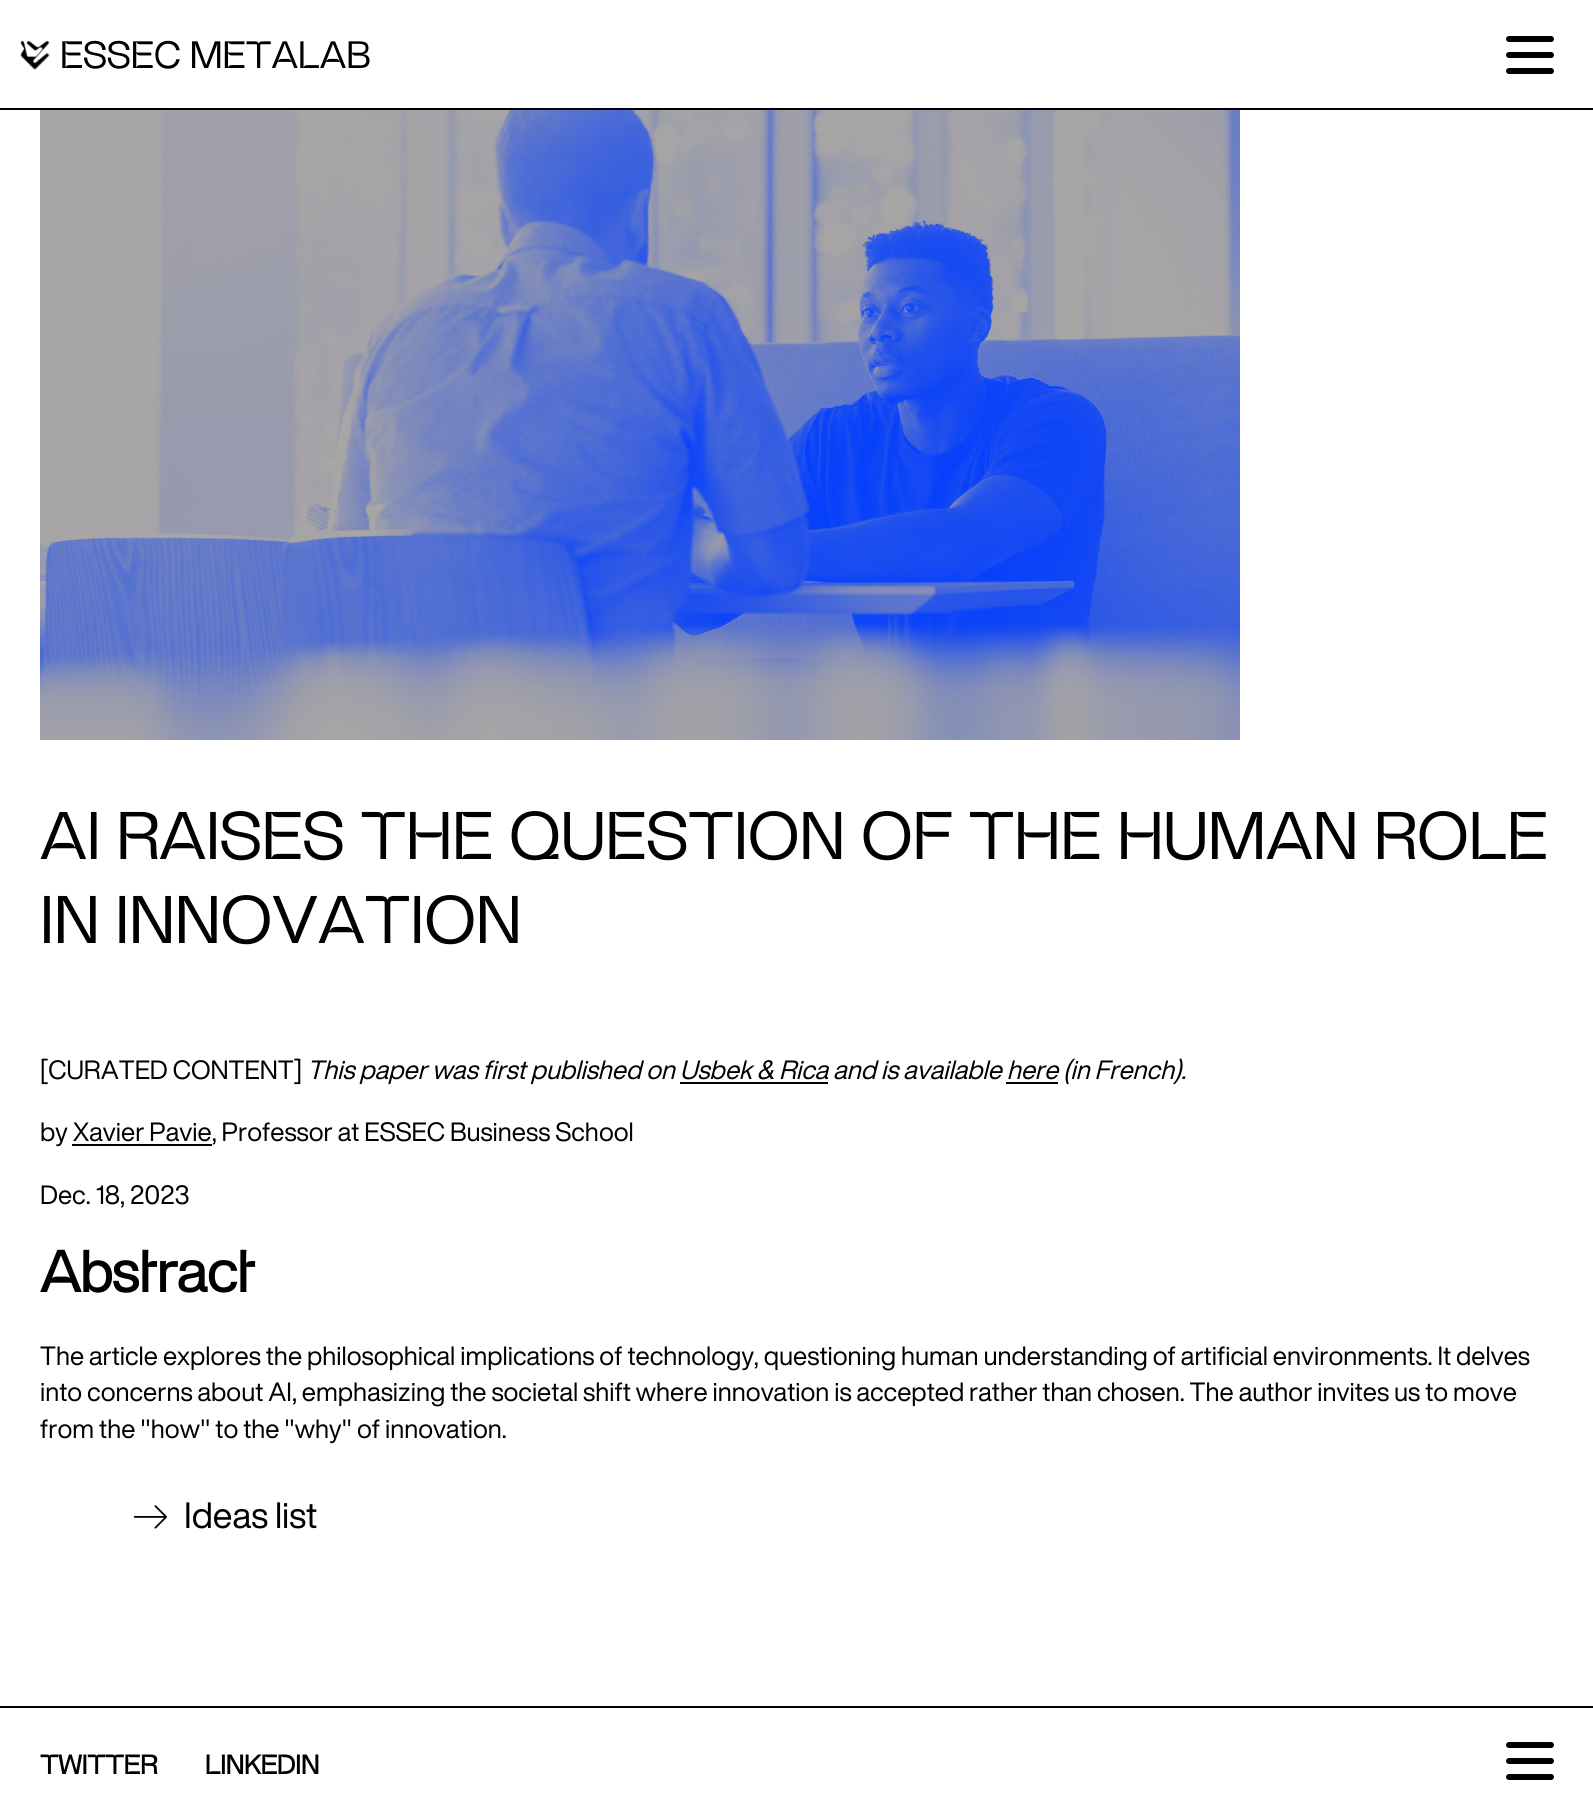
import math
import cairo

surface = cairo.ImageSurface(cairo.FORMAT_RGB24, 1593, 1817)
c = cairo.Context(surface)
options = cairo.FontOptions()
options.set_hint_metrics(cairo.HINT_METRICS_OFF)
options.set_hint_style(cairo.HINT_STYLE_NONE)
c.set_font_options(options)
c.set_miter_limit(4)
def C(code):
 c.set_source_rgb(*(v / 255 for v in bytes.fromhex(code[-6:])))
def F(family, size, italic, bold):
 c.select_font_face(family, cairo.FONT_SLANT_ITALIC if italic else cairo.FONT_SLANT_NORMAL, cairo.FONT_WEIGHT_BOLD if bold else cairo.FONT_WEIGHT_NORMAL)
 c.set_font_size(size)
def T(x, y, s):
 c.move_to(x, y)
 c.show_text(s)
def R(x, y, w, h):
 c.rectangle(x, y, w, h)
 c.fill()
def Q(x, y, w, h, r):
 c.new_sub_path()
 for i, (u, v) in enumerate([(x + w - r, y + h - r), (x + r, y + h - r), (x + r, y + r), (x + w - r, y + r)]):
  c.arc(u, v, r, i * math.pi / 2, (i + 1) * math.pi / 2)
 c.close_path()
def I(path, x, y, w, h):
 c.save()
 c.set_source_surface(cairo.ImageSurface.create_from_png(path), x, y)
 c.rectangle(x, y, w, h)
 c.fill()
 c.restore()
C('ffffff')
c.paint()
I('1.png',20,40,30,30)
F('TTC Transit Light',34,0,0)
C('000000')
T(60,68,'ESSEC METALAB')
Q(1506,36,48,6,3)
c.fill()
Q(1506,52,48,6,3)
c.fill()
Q(1506,68,48,6,3)
c.fill()
R(0,108,1593,2)
I('2.png',40,110,1200,630)
F('TTC Transit Light',60,0,0)
T(40,859,'AI RAISES THE QUESTION OF THE HUMAN ROLE')
T(40,943,'IN INNOVATION')
F('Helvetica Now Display',26,0,0)
T(40,1079,'[CURATED CONTENT]')
F('Helvetica Now Display',26,1,0)
T(307,1079,'This paper was first published on Usbek & Rica and is available here (in French).')
R(680,1082,148,2)
R(1006,1082,52,2)
F('Helvetica Now Display',26,0,0)
T(40,1141,'by Xavier Pavie, Professor at ESSEC Business School')
R(72,1144,140,2)
T(40,1204,'Dec. 18, 2023')
F('TTC Transit',52,0,1)
T(40,1292,'Abstract')
F('Helvetica Now Display',26,0,0)
T(40,1365,'The article explores the philosophical implications of technology, questioning human understanding of artificial environments. It delves')
T(40,1401,'into concerns about AI, emphasizing the societal shift where innovation is accepted rather than chosen. The author invites us to move')
T(40,1438,'from the "how" to the "why" of innovation.')
I('3.png',133,1505,34,24)
F('Helvetica Now Display',36,0,0)
T(184,1528,'Ideas list')
R(0,1706,1593,2)
F('TTC Transit',24,0,1)
T(40,1774,'TWITTER')
T(205,1774,'LINKEDIN')
Q(1506,1742,48,6,3)
c.fill()
Q(1506,1758,48,6,3)
c.fill()
Q(1506,1774,48,6,3)
c.fill()
surface.write_to_png('o.png')
